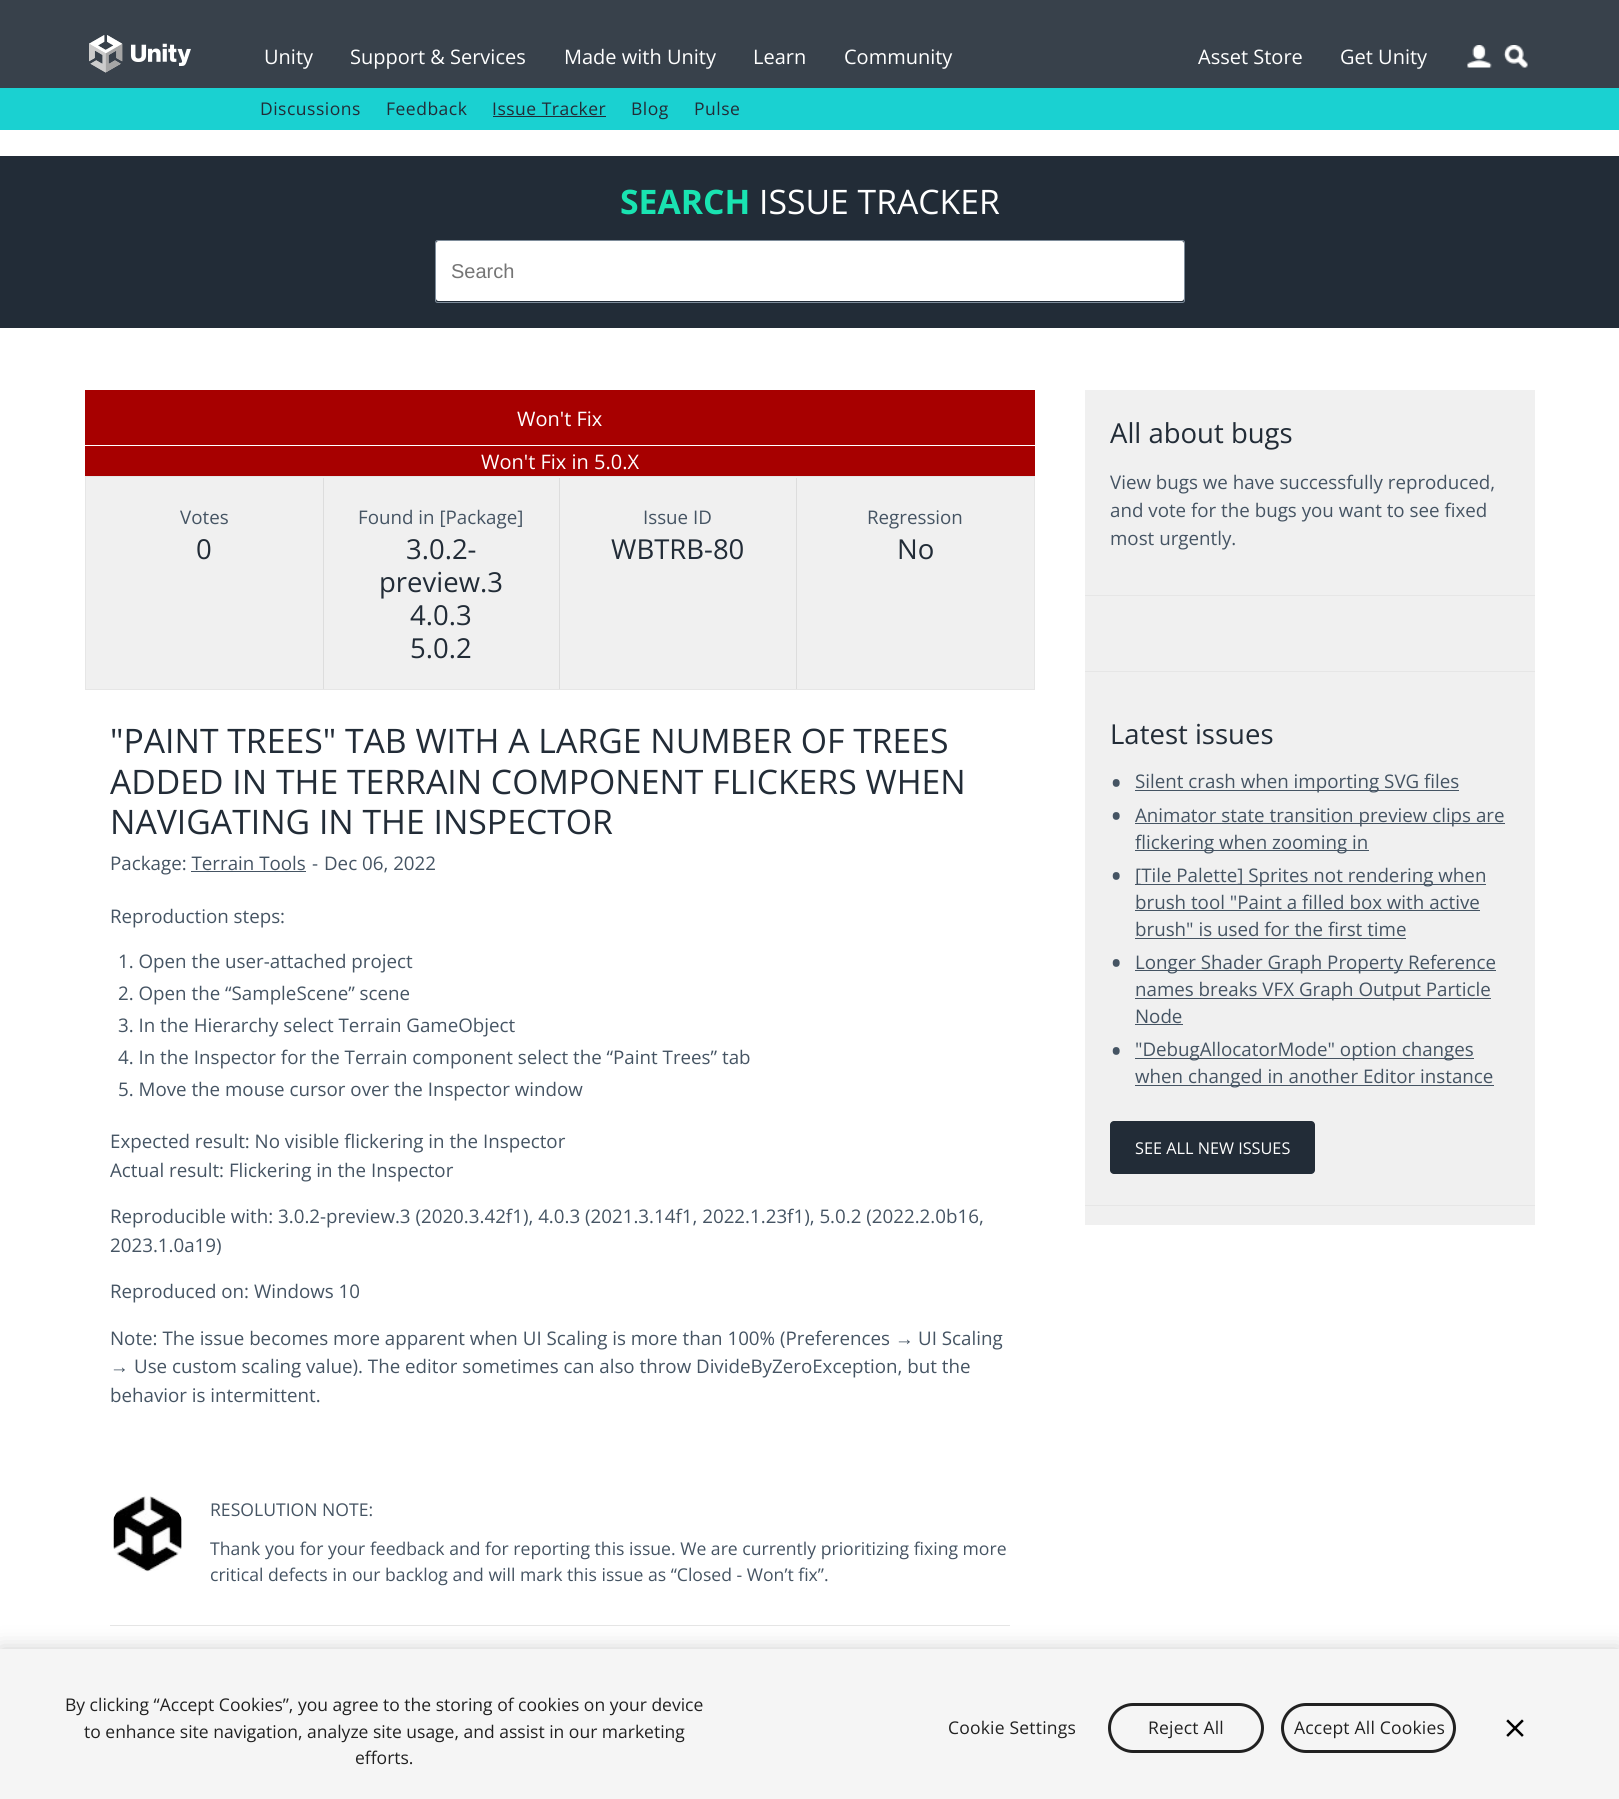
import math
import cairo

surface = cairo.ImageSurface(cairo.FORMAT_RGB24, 1619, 1799)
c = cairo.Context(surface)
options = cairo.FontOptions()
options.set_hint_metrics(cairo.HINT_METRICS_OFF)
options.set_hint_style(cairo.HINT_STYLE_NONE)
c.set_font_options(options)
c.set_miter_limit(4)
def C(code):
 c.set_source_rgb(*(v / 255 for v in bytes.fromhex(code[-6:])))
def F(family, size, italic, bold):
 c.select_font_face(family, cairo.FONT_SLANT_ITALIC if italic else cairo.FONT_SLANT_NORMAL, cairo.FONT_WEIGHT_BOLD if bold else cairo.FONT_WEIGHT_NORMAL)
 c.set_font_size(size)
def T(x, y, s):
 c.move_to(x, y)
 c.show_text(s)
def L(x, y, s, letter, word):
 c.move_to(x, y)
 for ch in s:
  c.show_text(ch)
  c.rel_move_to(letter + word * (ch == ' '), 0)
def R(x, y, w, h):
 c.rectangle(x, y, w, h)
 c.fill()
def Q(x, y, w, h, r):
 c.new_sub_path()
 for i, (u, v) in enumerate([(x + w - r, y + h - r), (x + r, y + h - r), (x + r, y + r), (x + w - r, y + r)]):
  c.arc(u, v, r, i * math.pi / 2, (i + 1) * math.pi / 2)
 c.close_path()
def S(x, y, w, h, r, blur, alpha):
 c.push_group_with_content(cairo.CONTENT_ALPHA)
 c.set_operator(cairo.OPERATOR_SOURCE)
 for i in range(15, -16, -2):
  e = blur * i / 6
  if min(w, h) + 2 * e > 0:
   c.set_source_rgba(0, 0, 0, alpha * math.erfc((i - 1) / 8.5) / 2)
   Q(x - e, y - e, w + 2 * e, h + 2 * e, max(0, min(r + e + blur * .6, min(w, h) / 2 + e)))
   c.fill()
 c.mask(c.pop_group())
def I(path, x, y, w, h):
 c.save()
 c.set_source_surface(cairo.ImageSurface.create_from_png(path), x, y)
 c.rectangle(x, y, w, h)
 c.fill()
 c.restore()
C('ffffff')
c.paint()
C('38414b')
R(0,0,1619,88)
I('1.png',89,35,102,38)
F('Open Sans',20,0,0)
C('ffffff')
T(264,64,'Unity')
T(350,64,'Support & Services')
T(564,64,'Made with Unity')
T(753,64,'Learn')
T(844,64,'Community')
T(1198,64,'Asset Store')
T(1340,64,'Get Unity')
I('2.png',1467,45,25,23)
I('3.png',1503,45,25,23)
C('1ad1d1')
R(0,88,1619,42)
F('Open Sans',17.5,0,0)
C('222c37')
L(260,115,'Discussions',.5,0)
L(386,115,'Feedback',.5,0)
L(492,115,'Issue Tracker',.5,0)
R(493,116,113,1)
L(631,115,'Blog',.5,0)
L(694,115,'Pulse',.5,0)
R(0,156,1619,172)
F('Open Sans',33.75,0,1)
C('19e3b1')
T(620,214,'SEARCH')
F('Open Sans',33.75,0,0)
C('ffffff')
T(759,214,'ISSUE TRACKER')
Q(435.5,240.5,749,62,2)
C('7e8c9a')
c.set_line_width(1)
c.stroke()
C('ffffff')
Q(436,241,748,60,2.5)
c.fill()
F('Liberation Sans',20,0,0)
C('757575')
T(451,278,'Search')
C('a70000')
R(85,390,950,55)
F('Open Sans',20,0,0)
C('ffffff')
T(517,426,'Won\'t Fix')
C('a70000')
R(85,446,950,30)
C('ffffff')
T(481,469,'Won\'t Fix in 5.0.X')
C('f0f0f0')
c.rectangle(85.5,476.5,949,213)
c.fill_preserve()
C('e6e6e6')
c.stroke()
C('dddddd')
R(323,478,1,211)
F('Open Sans',18.75,0,0)
C('455463')
T(180,524,'Votes')
F('Open Sans',27.5,0,0)
C('222c37')
T(196,559,'0')
C('dddddd')
R(559,478,1,211)
F('Open Sans',18.75,0,0)
C('455463')
T(358,524,'Found in [Package]')
F('Open Sans',27.5,0,0)
C('222c37')
T(406,559,'3.0.2-')
T(379,592,'preview.3')
T(410,625,'4.0.3')
T(410,658,'5.0.2')
C('dddddd')
R(796,478,1,211)
F('Open Sans',18.75,0,0)
C('455463')
T(643,524,'Issue ID')
F('Open Sans',27.5,0,0)
C('222c37')
T(611,559,'WBTRB-80')
F('Open Sans',18.75,0,0)
C('455463')
T(867,524,'Regression')
F('Open Sans',27.5,0,0)
C('222c37')
T(897,559,'No')
F('Open Sans',33.75,0,0)
T(110,753,'"PAINT TREES" TAB WITH A LARGE NUMBER OF TREES')
T(110,794,'ADDED IN THE TERRAIN COMPONENT FLICKERS WHEN')
T(110,834,'NAVIGATING IN THE INSPECTOR')
F('Open Sans',18.75,0,0)
C('455463')
T(110,870,'Package: Terrain Tools')
R(191,871,115,1)
T(312,870,'-')
T(324,870,'Dec 06, 2022')
T(110,923,'Reproduction steps:')
T(118,968,'1. Open the user-attached project')
T(118,1000,'2. Open the “SampleScene” scene')
T(118,1032,'3. In the Hierarchy select Terrain GameObject')
T(118,1064,'4. In the Inspector for the Terrain component select the “Paint Trees” tab')
T(118,1096,'5. Move the mouse cursor over the Inspector window')
T(110,1148,'Expected result: No visible flickering in the Inspector')
T(110,1177,'Actual result: Flickering in the Inspector')
T(110,1223,'Reproducible with: 3.0.2-preview.3 (2020.3.42f1), 4.0.3 (2021.3.14f1, 2022.1.23f1), 5.0.2 (2022.2.0b16,')
T(110,1252,'2023.1.0a19)')
T(110,1298,'Reproduced on: Windows 10')
T(110,1345,'Note: The issue becomes more apparent when UI Scaling is more than 100% (Preferences')
F('Liberation Sans',18.75,0,0)
T(895,1345,'→')
F('Open Sans',18.75,0,0)
T(918,1345,'UI Scaling')
F('Liberation Sans',18.75,0,0)
T(110,1373,'→')
F('Open Sans',18.75,0,0)
T(134,1373,'Use custom scaling value). The editor sometimes can also throw DivideByZeroException, but the')
T(110,1402,'behavior is intermittent.')
C('e6e6e6')
R(110,1625,900,1)
I('4.png',113,1496,69,76)
F('Open Sans',17.6,0,0)
C('455463')
T(210,1516,'RESOLUTION NOTE:')
T(210,1555,'Thank you for your feedback and for reporting this issue. We are currently prioritizing fixing more')
T(210,1581,'critical defects in our backlog and will mark this issue as “Closed - Won’t fix”.')
C('f0f0f0')
R(1085,390,450,835)
C('e6e6e6')
R(1085,595,450,1)
F('Open Sans',27.5,0,0)
C('222c37')
T(1110,443,'All about bugs')
F('Open Sans',18.75,0,0)
C('455463')
T(1110,489,'View bugs we have successfully reproduced,')
T(1110,517,'and vote for the bugs you want to see fixed')
T(1110,545,'most urgently.')
C('e6e6e6')
R(1085,671,450,1)
R(1085,1205,450,1)
F('Open Sans',27.5,0,0)
C('222c37')
T(1110,744,'Latest issues')
F('Open Sans',33,0,0)
C('455463')
T(1110,795,'•')
R(1135,790,324,1)
F('Open Sans',18.75,0,0)
T(1135,788,'Silent crash when importing SVG files')
F('Open Sans',33,0,0)
T(1110,828,'•')
R(1135,823,370,1)
F('Open Sans',18.75,0,0)
T(1135,822,'Animator state transition preview clips are')
R(1135,850,234,1)
T(1135,849,'flickering when zooming in')
F('Open Sans',33,0,0)
T(1110,888,'•')
R(1135,884,351,1)
F('Open Sans',18.75,0,0)
T(1135,882,'[Tile Palette] Sprites not rendering when')
T(1135,909,'brush tool "Paint a filled box with active')
R(1135,910,345,1)
T(1135,936,'brush" is used for the first time')
R(1135,938,271,1)
F('Open Sans',33,0,0)
T(1110,975,'•')
R(1135,970,361,1)
F('Open Sans',18.75,0,0)
T(1135,969,'Longer Shader Graph Property Reference')
R(1135,998,356,1)
T(1135,996,'names breaks VFX Graph Output Particle')
T(1135,1023,'Node')
R(1135,1024,48,1)
F('Open Sans',33,0,0)
T(1110,1063,'•')
R(1135,1058,339,1)
F('Open Sans',18.75,0,0)
T(1135,1056,'"DebugAllocatorMode" option changes')
R(1135,1085,359,1)
T(1135,1083,'when changed in another Editor instance')
C('222c37')
Q(1110,1121,205,53,4)
c.fill()
F('Open Sans',16.25,0,0)
C('ffffff')
T(1135,1154,'SEE ALL NEW ISSUES')
C('000000')
S(0,1649,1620,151,0,11,.2)
C('f5f5f5')
R(0,1649,1619,150)
F('Open Sans',17.5,0,0)
C('212121')
T(65,1711,'By clicking “Accept Cookies”, you agree to the storing of cookies on your device')
T(84,1738,'to enhance site navigation, analyze site usage, and assist in our marketing')
T(355,1764,'efforts.')
L(948,1734,'Cookie Settings',.2,0)
Q(1109.5,1704.5,153,47,23.5)
c.set_line_width(3)
c.stroke()
L(1148,1734,'Reject All',.2,0)
Q(1282.5,1704.5,172,47,23.5)
c.stroke()
L(1294,1734,'Accept All Cookies',.2,0)
I('5.png',1506,1719,18,18)
surface.write_to_png('o.png')
